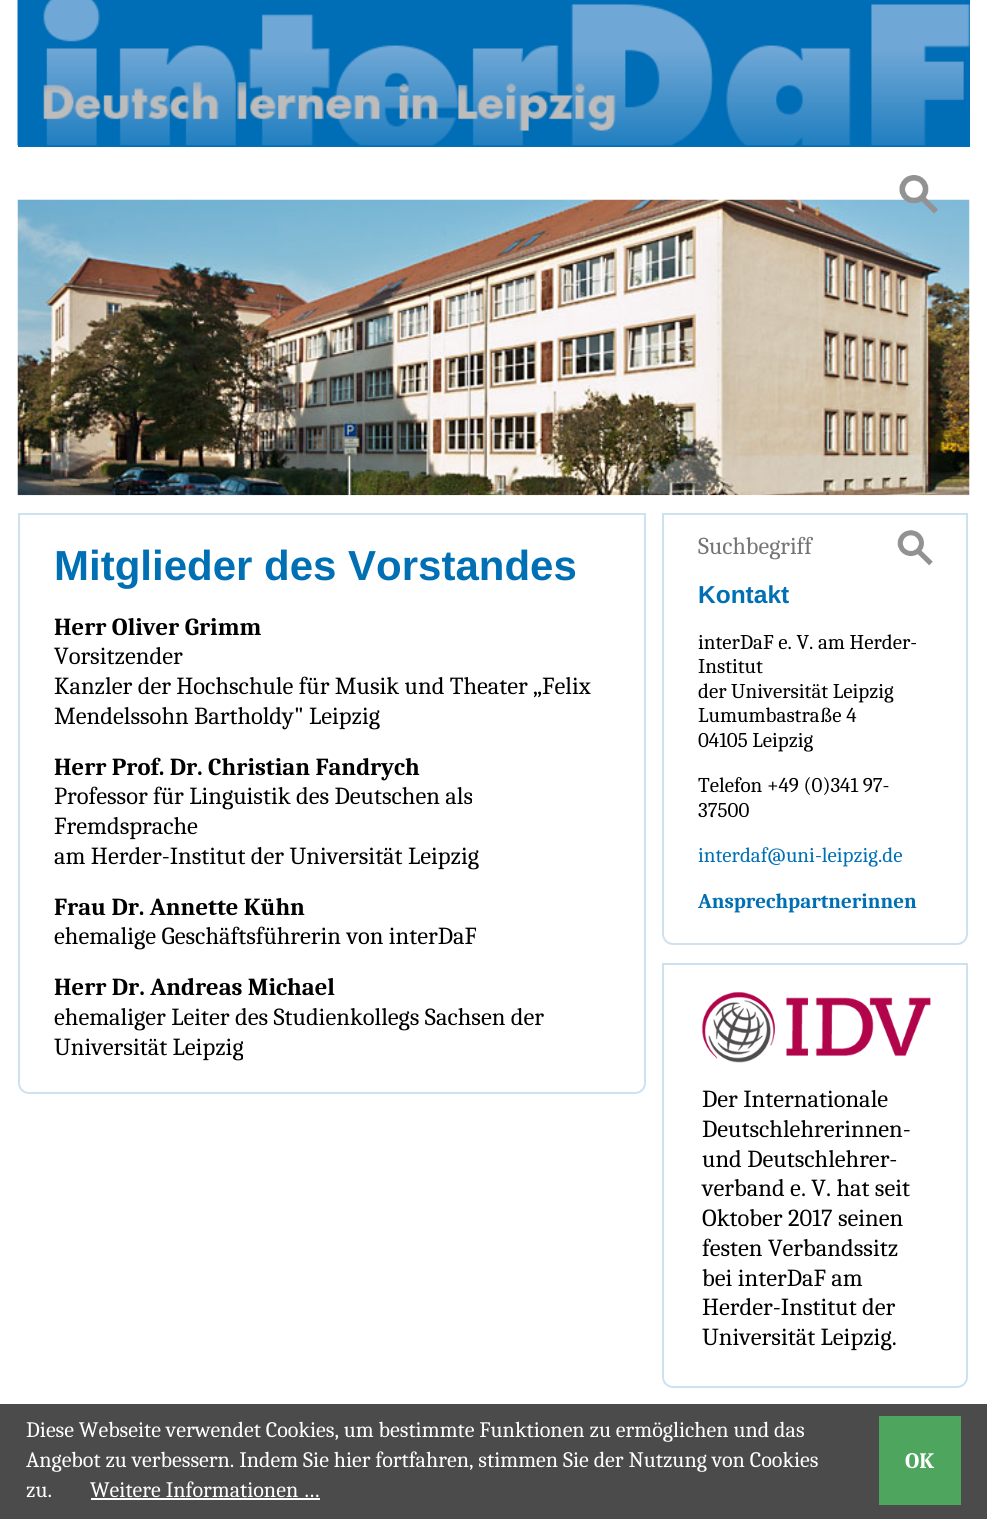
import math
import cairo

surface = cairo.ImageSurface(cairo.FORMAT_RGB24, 987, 1519)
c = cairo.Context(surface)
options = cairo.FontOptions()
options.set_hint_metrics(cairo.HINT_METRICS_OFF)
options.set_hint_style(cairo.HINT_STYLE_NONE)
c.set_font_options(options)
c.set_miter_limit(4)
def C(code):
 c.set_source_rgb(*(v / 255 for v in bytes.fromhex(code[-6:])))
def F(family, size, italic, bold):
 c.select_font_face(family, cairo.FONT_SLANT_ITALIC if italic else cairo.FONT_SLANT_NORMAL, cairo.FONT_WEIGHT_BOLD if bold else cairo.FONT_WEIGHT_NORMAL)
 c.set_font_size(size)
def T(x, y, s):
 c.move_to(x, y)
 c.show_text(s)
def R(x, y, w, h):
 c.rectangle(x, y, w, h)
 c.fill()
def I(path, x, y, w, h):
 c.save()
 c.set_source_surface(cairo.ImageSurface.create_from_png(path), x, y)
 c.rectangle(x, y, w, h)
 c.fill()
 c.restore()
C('ffffff')
c.paint()
C('006fb4')
R(18,0,952,147)
I('1.png',17,0,953,146)
I('3.png',17,199,953,297)
I('2.png',899,175,39,39)
c.new_path()
c.move_to(19,514)
c.line_to(645,514)
c.line_to(645,1083)
c.curve_to(645,1088.5,640.5,1093,635,1093)
c.line_to(29,1093)
c.curve_to(23.5,1093,19,1088.5,19,1083)
c.close_path()
C('cce2f0')
c.stroke()
F('Liberation Sans',42,0,1)
C('006fb4')
T(54,580,'Mitglieder des Vorstandes')
F('Caladea',24.5,0,1)
C('000000')
T(54,635,'Herr Oliver Grimm')
F('Caladea',24.5,0,0)
T(54,664,'Vorsitzender')
T(54,694,'Kanzler der Hochschule für Musik und Theater „Felix')
T(54,724,'Mendelssohn Bartholdy" Leipzig')
F('Caladea',24.5,0,1)
T(54,775,'Herr Prof. Dr. Christian Fandrych')
F('Caladea',24.5,0,0)
T(54,804,'Professor für Linguistik des Deutschen als')
T(54,834,'Fremdsprache')
T(54,864,'am Herder-Institut der Universität Leipzig')
F('Caladea',24.5,0,1)
T(54,915,'Frau Dr. Annette Kühn')
F('Caladea',24.5,0,0)
T(54,944,'ehemalige Geschäftsführerin von interDaF')
F('Caladea',24.5,0,1)
T(54,995,'Herr Dr. Andreas Michael')
F('Caladea',24.5,0,0)
T(54,1025,'ehemaliger Leiter des Studienkollegs Sachsen der')
T(54,1055,'Universität Leipzig')
c.new_path()
c.move_to(663,514)
c.line_to(967,514)
c.line_to(967,934)
c.curve_to(967,939.5,962.5,944,957,944)
c.line_to(673,944)
c.curve_to(667.5,944,663,939.5,663,934)
c.close_path()
C('cce2f0')
c.stroke()
F('Caladea',24.25,0,0)
C('757575')
T(698,554,'Suchbegriff')
I('4.png',897,530,36,36)
F('Liberation Sans',24.5,0,1)
C('006fb4')
T(698,603,'Kontakt')
F('Caladea',21,0,0)
C('000000')
T(698,649,'interDaF e. V. am Herder-')
T(698,673,'Institut')
T(698,698,'der Universität Leipzig')
T(698,722,'Lumumbastraße 4')
T(698,747,'04105 Leipzig')
T(698,792,'Telefon +49 (0)341 97-')
T(698,817,'37500')
C('006fb4')
T(698,862,'interdaf@uni-leipzig.de')
F('Caladea',21,0,1)
T(698,908,'Ansprechpartnerinnen')
c.new_path()
c.move_to(663,964)
c.line_to(967,964)
c.line_to(967,1377)
c.curve_to(967,1382.5,962.5,1387,957,1387)
c.line_to(673,1387)
c.curve_to(667.5,1387,663,1382.5,663,1377)
c.close_path()
C('cce2f0')
c.stroke()
I('5.png',701,992,230,71)
F('Caladea',24.5,0,0)
C('000000')
T(702,1107,'Der Internationale')
T(702,1137,'Deutschlehrerinnen-')
T(702,1167,'und Deutschlehrer-')
T(702,1196,'verband e. V. hat seit')
T(702,1226,'Oktober 2017 seinen')
T(702,1256,'festen Verbandssitz')
T(702,1286,'bei interDaF am')
T(702,1315,'Herder-Institut der')
T(702,1345,'Universität Leipzig.')
C('4b4b4b')
R(0,1404,987,115)
F('Caladea',22.05,0,0)
C('ffffff')
T(26,1437,'Diese Webseite verwendet Cookies, um bestimmte Funktionen zu ermöglichen und das')
T(26,1467,'Angebot zu verbessern. Indem Sie hier fortfahren, stimmen Sie der Nutzung von Cookies')
T(26,1497,'zu.')
T(90,1497,'Weitere Informationen …')
R(91,1498,229,2)
C('4ea55e')
R(879,1416,82,89)
F('Caladea',22,0,1)
C('ffffff')
T(905,1468,'OK')
surface.write_to_png('o.png')
